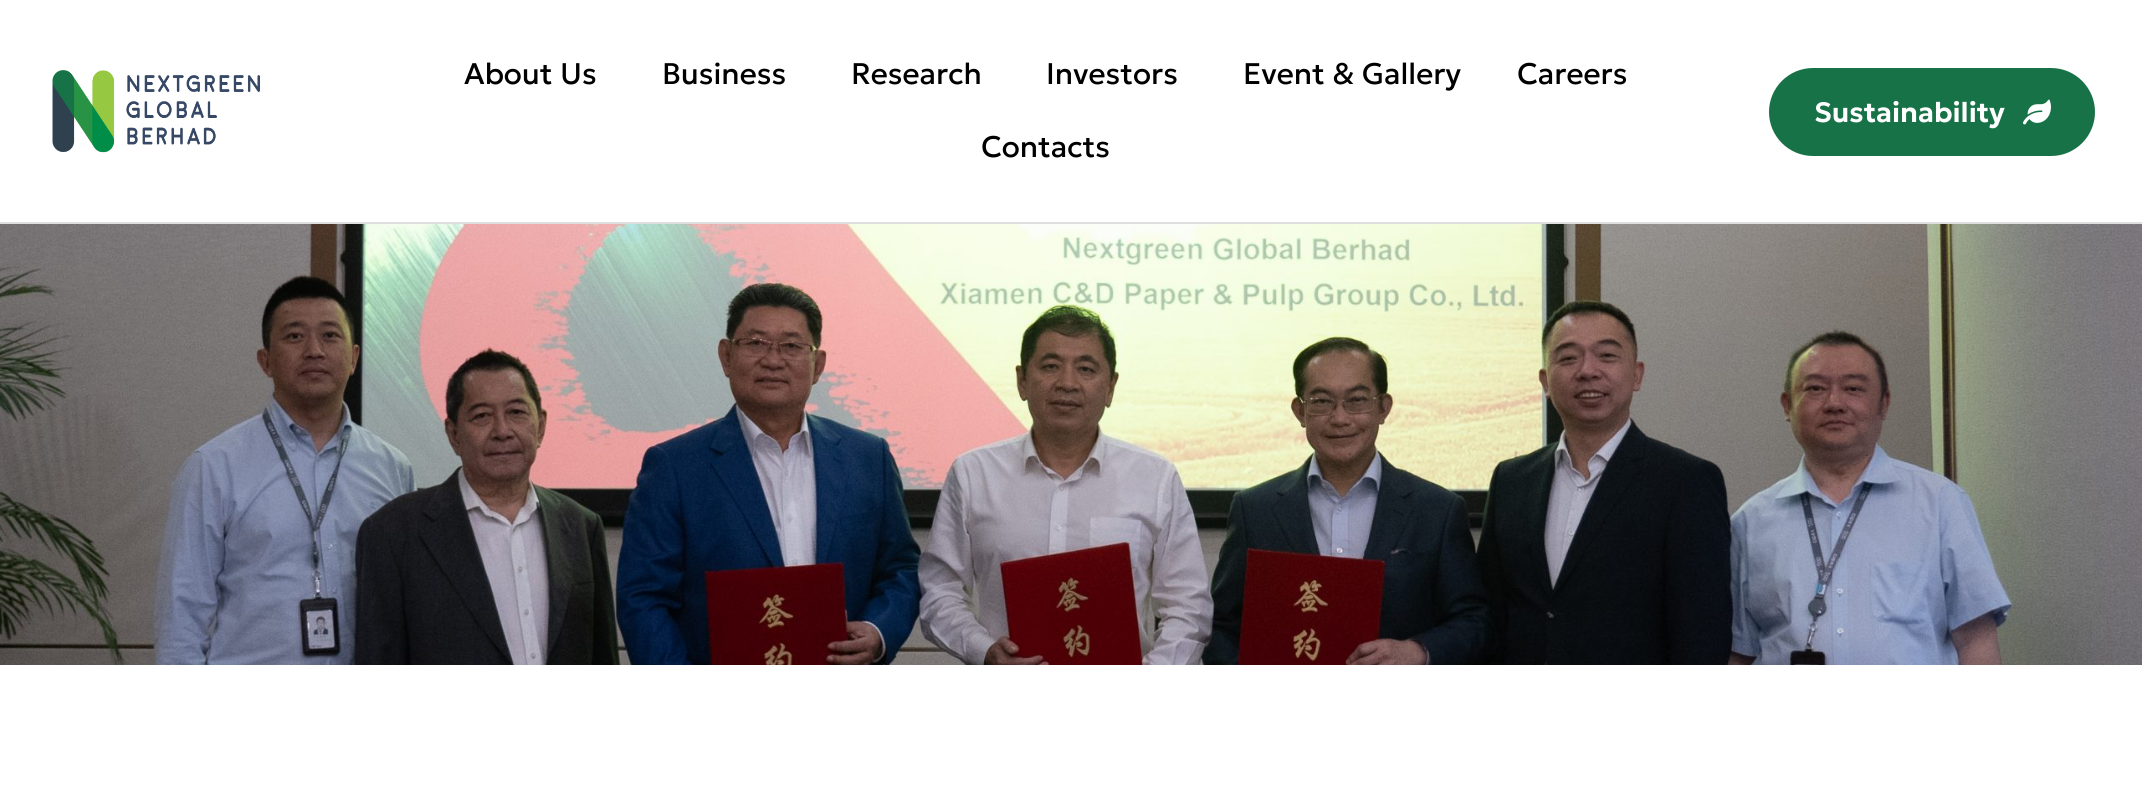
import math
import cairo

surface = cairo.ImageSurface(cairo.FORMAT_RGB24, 2142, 790)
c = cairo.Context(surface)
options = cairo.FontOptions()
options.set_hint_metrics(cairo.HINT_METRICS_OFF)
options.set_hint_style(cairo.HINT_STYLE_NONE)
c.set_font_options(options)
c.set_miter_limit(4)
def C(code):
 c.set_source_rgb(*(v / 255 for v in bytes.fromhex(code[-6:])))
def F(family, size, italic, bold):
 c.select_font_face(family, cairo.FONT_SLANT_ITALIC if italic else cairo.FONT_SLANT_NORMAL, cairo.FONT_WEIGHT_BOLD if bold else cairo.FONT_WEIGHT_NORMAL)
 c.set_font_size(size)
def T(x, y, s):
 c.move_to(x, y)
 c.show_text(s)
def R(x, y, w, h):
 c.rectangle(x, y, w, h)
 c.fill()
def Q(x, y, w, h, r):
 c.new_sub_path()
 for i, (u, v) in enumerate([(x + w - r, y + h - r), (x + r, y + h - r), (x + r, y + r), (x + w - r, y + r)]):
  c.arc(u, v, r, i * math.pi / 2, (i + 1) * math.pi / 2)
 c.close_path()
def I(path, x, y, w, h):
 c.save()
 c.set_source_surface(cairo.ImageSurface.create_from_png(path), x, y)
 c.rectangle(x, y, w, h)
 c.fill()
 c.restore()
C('ffffff')
c.paint()
C('dfdfdf')
R(0,222,2142,2)
I('1.png',52,70,208,83)
F('Geologica',29.75,0,0)
C('000000')
T(464,84,'About Us')
T(662,84,'Business')
T(851,84,'Research')
T(1046,84,'Investors')
T(1243,84,'Event & Gallery')
T(1517,84,'Careers')
T(981,157,'Contacts')
C('187247')
Q(1769,68,326,88,44)
c.fill()
F('Geologica SemiBold',28,0,0)
C('ffffff')
T(1814,122,'Sustainability')
I('2.png',2023,99,28,26)
I('3.png',0,224,2142,441)
surface.write_to_png('o.png')
